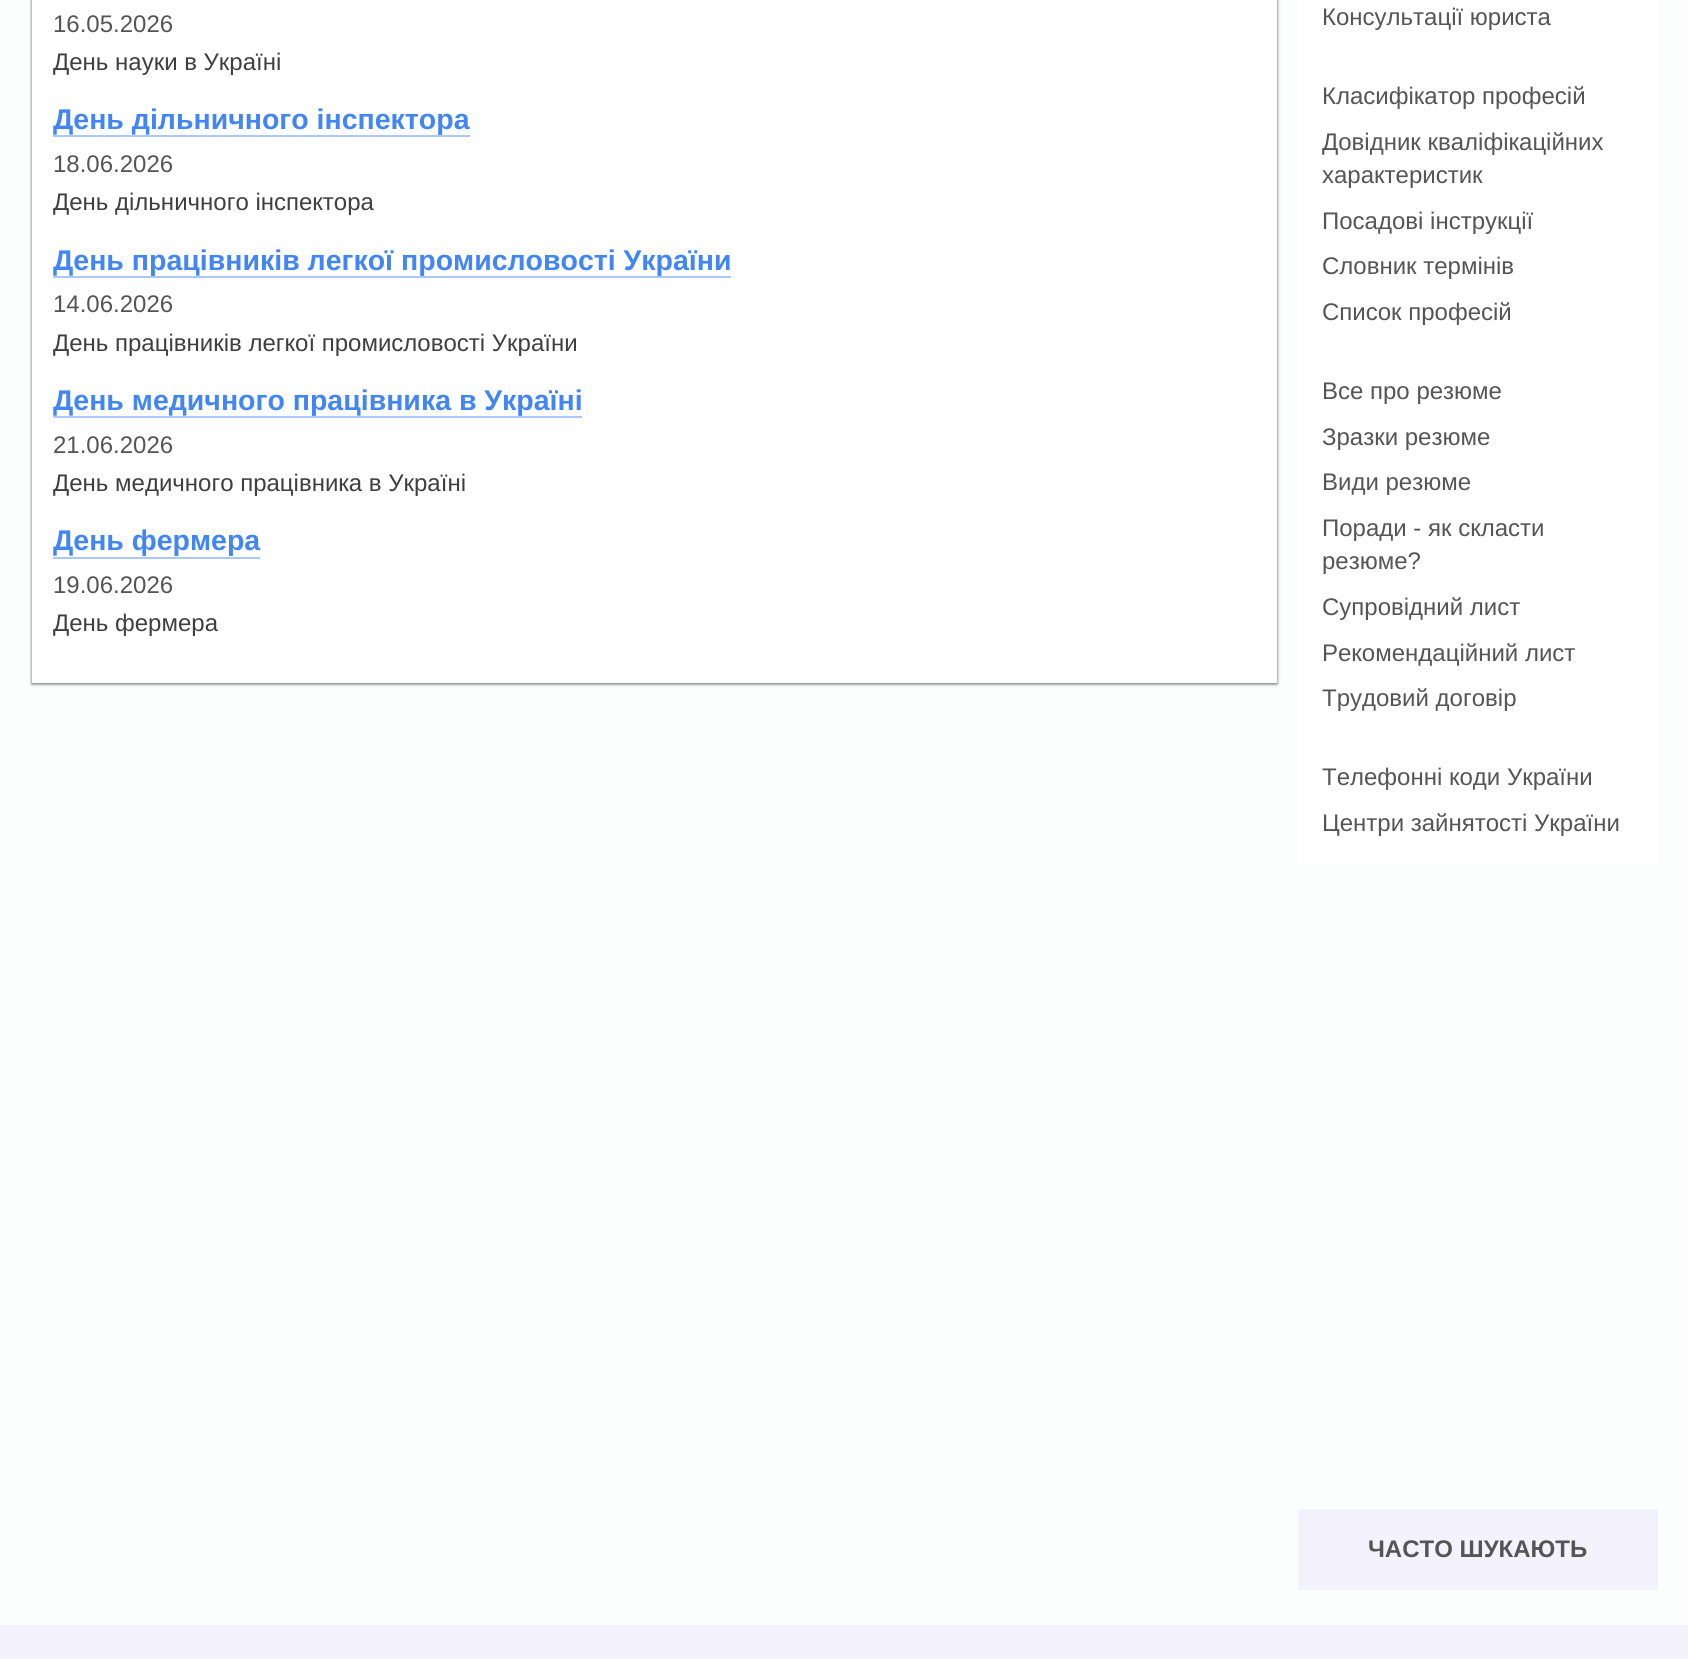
import math
import cairo

surface = cairo.ImageSurface(cairo.FORMAT_RGB24, 1688, 1659)
c = cairo.Context(surface)
options = cairo.FontOptions()
options.set_hint_metrics(cairo.HINT_METRICS_OFF)
options.set_hint_style(cairo.HINT_STYLE_NONE)
c.set_font_options(options)
c.set_miter_limit(4)
def C(code):
 c.set_source_rgb(*(v / 255 for v in bytes.fromhex(code[-6:])))
def F(family, size, italic, bold):
 c.select_font_face(family, cairo.FONT_SLANT_ITALIC if italic else cairo.FONT_SLANT_NORMAL, cairo.FONT_WEIGHT_BOLD if bold else cairo.FONT_WEIGHT_NORMAL)
 c.set_font_size(size)
def T(x, y, s):
 c.move_to(x, y)
 c.show_text(s)
def R(x, y, w, h):
 c.rectangle(x, y, w, h)
 c.fill()
def Q(x, y, w, h, r):
 c.new_sub_path()
 for i, (u, v) in enumerate([(x + w - r, y + h - r), (x + r, y + h - r), (x + r, y + r), (x + w - r, y + r)]):
  c.arc(u, v, r, i * math.pi / 2, (i + 1) * math.pi / 2)
 c.close_path()
def S(x, y, w, h, r, blur, alpha):
 c.push_group_with_content(cairo.CONTENT_ALPHA)
 c.set_operator(cairo.OPERATOR_SOURCE)
 for i in range(15, -16, -2):
  e = blur * i / 6
  if min(w, h) + 2 * e > 0:
   c.set_source_rgba(0, 0, 0, alpha * math.erfc((i - 1) / 8.5) / 2)
   Q(x - e, y - e, w + 2 * e, h + 2 * e, max(0, min(r + e + blur * .6, min(w, h) / 2 + e)))
   c.fill()
 c.mask(c.pop_group())
C('fcfdfd')
c.paint()
C('000000')
S(32,-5,1245,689,0,1.5,.24)
S(32,-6,1245,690,0,2,.12)
S(32,-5,1245,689,0,1.5,.24)
S(32,-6,1245,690,0,2,.12)
C('ffffff')
R(32,0,1245,683)
F('Liberation Sans',24,0,0)
C('555555')
T(53,32,'16.05.2026')
C('3f3f3f')
T(53,70,'День науки в Україні')
F('Liberation Sans',28.5,0,1)
C('4285f4')
T(53,129,'День дільничного інспектора')
C('aac8fa')
R(53,135,417,2)
F('Liberation Sans',24,0,0)
C('555555')
T(53,172,'18.06.2026')
C('3f3f3f')
T(53,210,'День дільничного інспектора')
F('Liberation Sans',28.5,0,1)
C('4285f4')
T(53,270,'День працівників легкої промисловості України')
C('aac8fa')
R(53,276,678,2)
F('Liberation Sans',24,0,0)
C('555555')
T(53,312,'14.06.2026')
C('3f3f3f')
T(53,351,'День працівників легкої промисловості України')
F('Liberation Sans',28.5,0,1)
C('4285f4')
T(53,410,'День медичного працівника в Україні')
C('aac8fa')
R(53,416,529,2)
F('Liberation Sans',24,0,0)
C('555555')
T(53,453,'21.06.2026')
C('3f3f3f')
T(53,491,'День медичного працівника в Україні')
F('Liberation Sans',28.5,0,1)
C('4285f4')
T(53,550,'День фермера')
C('aac8fa')
R(53,557,207,2)
F('Liberation Sans',24,0,0)
C('555555')
T(53,593,'19.06.2026')
C('3f3f3f')
T(53,631,'День фермера')
C('ffffff')
R(1298,0,360,864)
C('555555')
T(1322,25,'Консультації юриста')
T(1322,104,'Класифікатор професій')
T(1322,150,'Довідник кваліфікаційних')
T(1322,183,'характеристик')
T(1322,229,'Посадові інструкції')
T(1322,274,'Словник термінів')
T(1322,320,'Список професій')
T(1322,399,'Все про резюме')
T(1322,445,'Зразки резюме')
T(1322,490,'Види резюме')
T(1322,536,'Поради - як скласти')
T(1322,569,'резюме?')
T(1322,615,'Супровідний лист')
T(1322,661,'Рекомендаційний лист')
T(1322,706,'Трудовий договір')
T(1322,785,'Телефонні коди України')
T(1322,831,'Центри зайнятості України')
C('f4f2fd')
R(1298,1509,360,81)
F('Liberation Sans',24,0,1)
C('555555')
T(1368,1557,'ЧАСТО ШУКАЮТЬ')
C('f4f2fd')
R(0,1625,1688,34)
surface.write_to_png('o.png')
